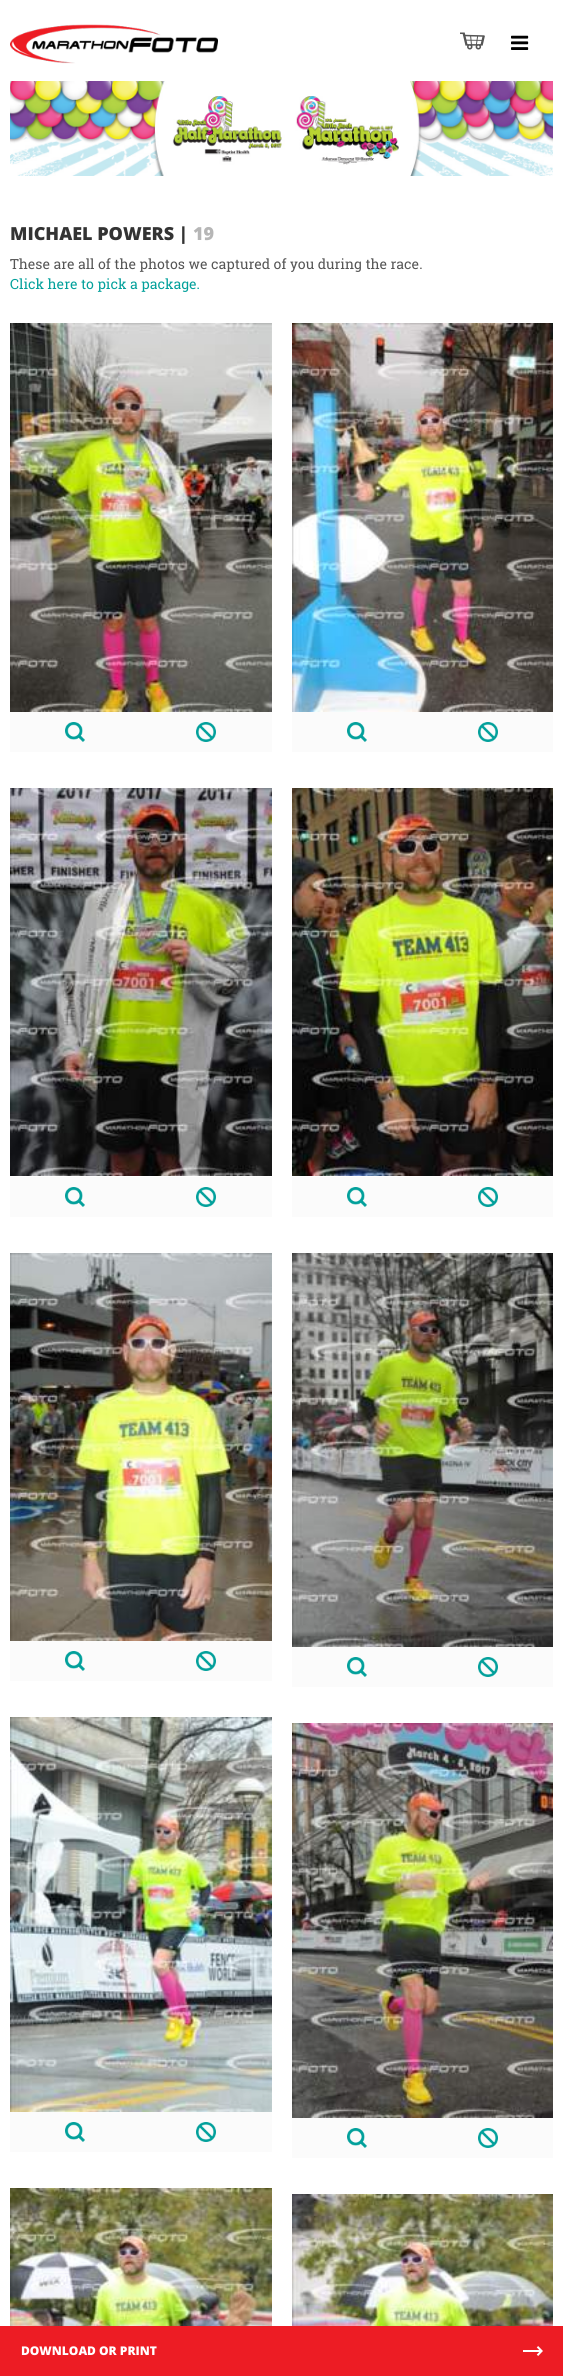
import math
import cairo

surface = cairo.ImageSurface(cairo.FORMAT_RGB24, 563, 2376)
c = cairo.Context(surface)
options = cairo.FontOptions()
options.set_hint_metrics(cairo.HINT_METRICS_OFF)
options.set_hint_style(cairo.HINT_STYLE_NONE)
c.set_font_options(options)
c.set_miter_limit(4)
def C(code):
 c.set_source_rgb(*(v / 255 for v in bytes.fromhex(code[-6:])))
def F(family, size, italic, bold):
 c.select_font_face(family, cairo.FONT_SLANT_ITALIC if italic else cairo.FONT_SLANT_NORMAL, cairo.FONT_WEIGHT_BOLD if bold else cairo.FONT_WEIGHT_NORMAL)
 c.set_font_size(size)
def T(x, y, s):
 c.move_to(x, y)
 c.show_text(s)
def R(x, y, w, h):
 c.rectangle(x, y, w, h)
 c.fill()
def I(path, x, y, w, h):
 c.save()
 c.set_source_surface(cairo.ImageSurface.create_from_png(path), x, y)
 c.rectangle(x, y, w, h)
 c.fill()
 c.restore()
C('ffffff')
c.paint()
I('1.png',10,24,208,40)
I('2.png',460,32,25,18)
I('3.png',511,35,18,15)
I('4.png',10,81,543,95)
F('Open Sans ExtraBold',18,0,0)
C('333333')
T(10,240,'MICHAEL POWERS |')
C('b6b6b6')
T(193,240,'19')
F('Roboto Slab',14,0,0)
C('555555')
T(10,269,'These are all of the photos we captured of you during the race.')
C('02a09b')
T(10,289,'Click here to pick a package.')
I('5.png',10,323,262,389)
C('fbfbfb')
R(10,712,262,40)
I('6.png',65,722,20,20)
I('7.png',196,722,20,20)
I('8.png',292,323,261,389)
R(292,712,261,40)
I('6.png',347,722,20,20)
I('7.png',478,722,20,20)
I('9.png',10,788,262,388)
R(10,1177,262,40)
I('6.png',65,1187,20,20)
I('7.png',196,1187,20,20)
I('10.png',292,788,261,388)
R(292,1177,261,40)
I('6.png',347,1187,20,20)
I('7.png',478,1187,20,20)
I('11.png',10,1253,262,388)
R(10,1641,262,40)
I('6.png',65,1651,20,20)
I('7.png',196,1651,20,20)
I('12.png',292,1253,261,394)
R(292,1647,261,40)
I('6.png',347,1657,20,20)
I('7.png',478,1657,20,20)
I('13.png',10,1717,262,395)
R(10,2112,262,40)
I('6.png',65,2122,20,20)
I('7.png',196,2122,20,20)
I('14.png',292,1723,261,395)
R(292,2118,261,40)
I('6.png',347,2128,20,20)
I('7.png',478,2128,20,20)
I('15.png',10,2188,262,138)
I('16.png',292,2194,261,132)
C('ed1c24')
R(0,2326,563,50)
F('Open Sans ExtraBold',12,0,0)
C('ffffff')
T(21,2355,'DOWNLOAD OR PRINT')
I('17.png',523,2346,20,10)
surface.write_to_png('o.png')
